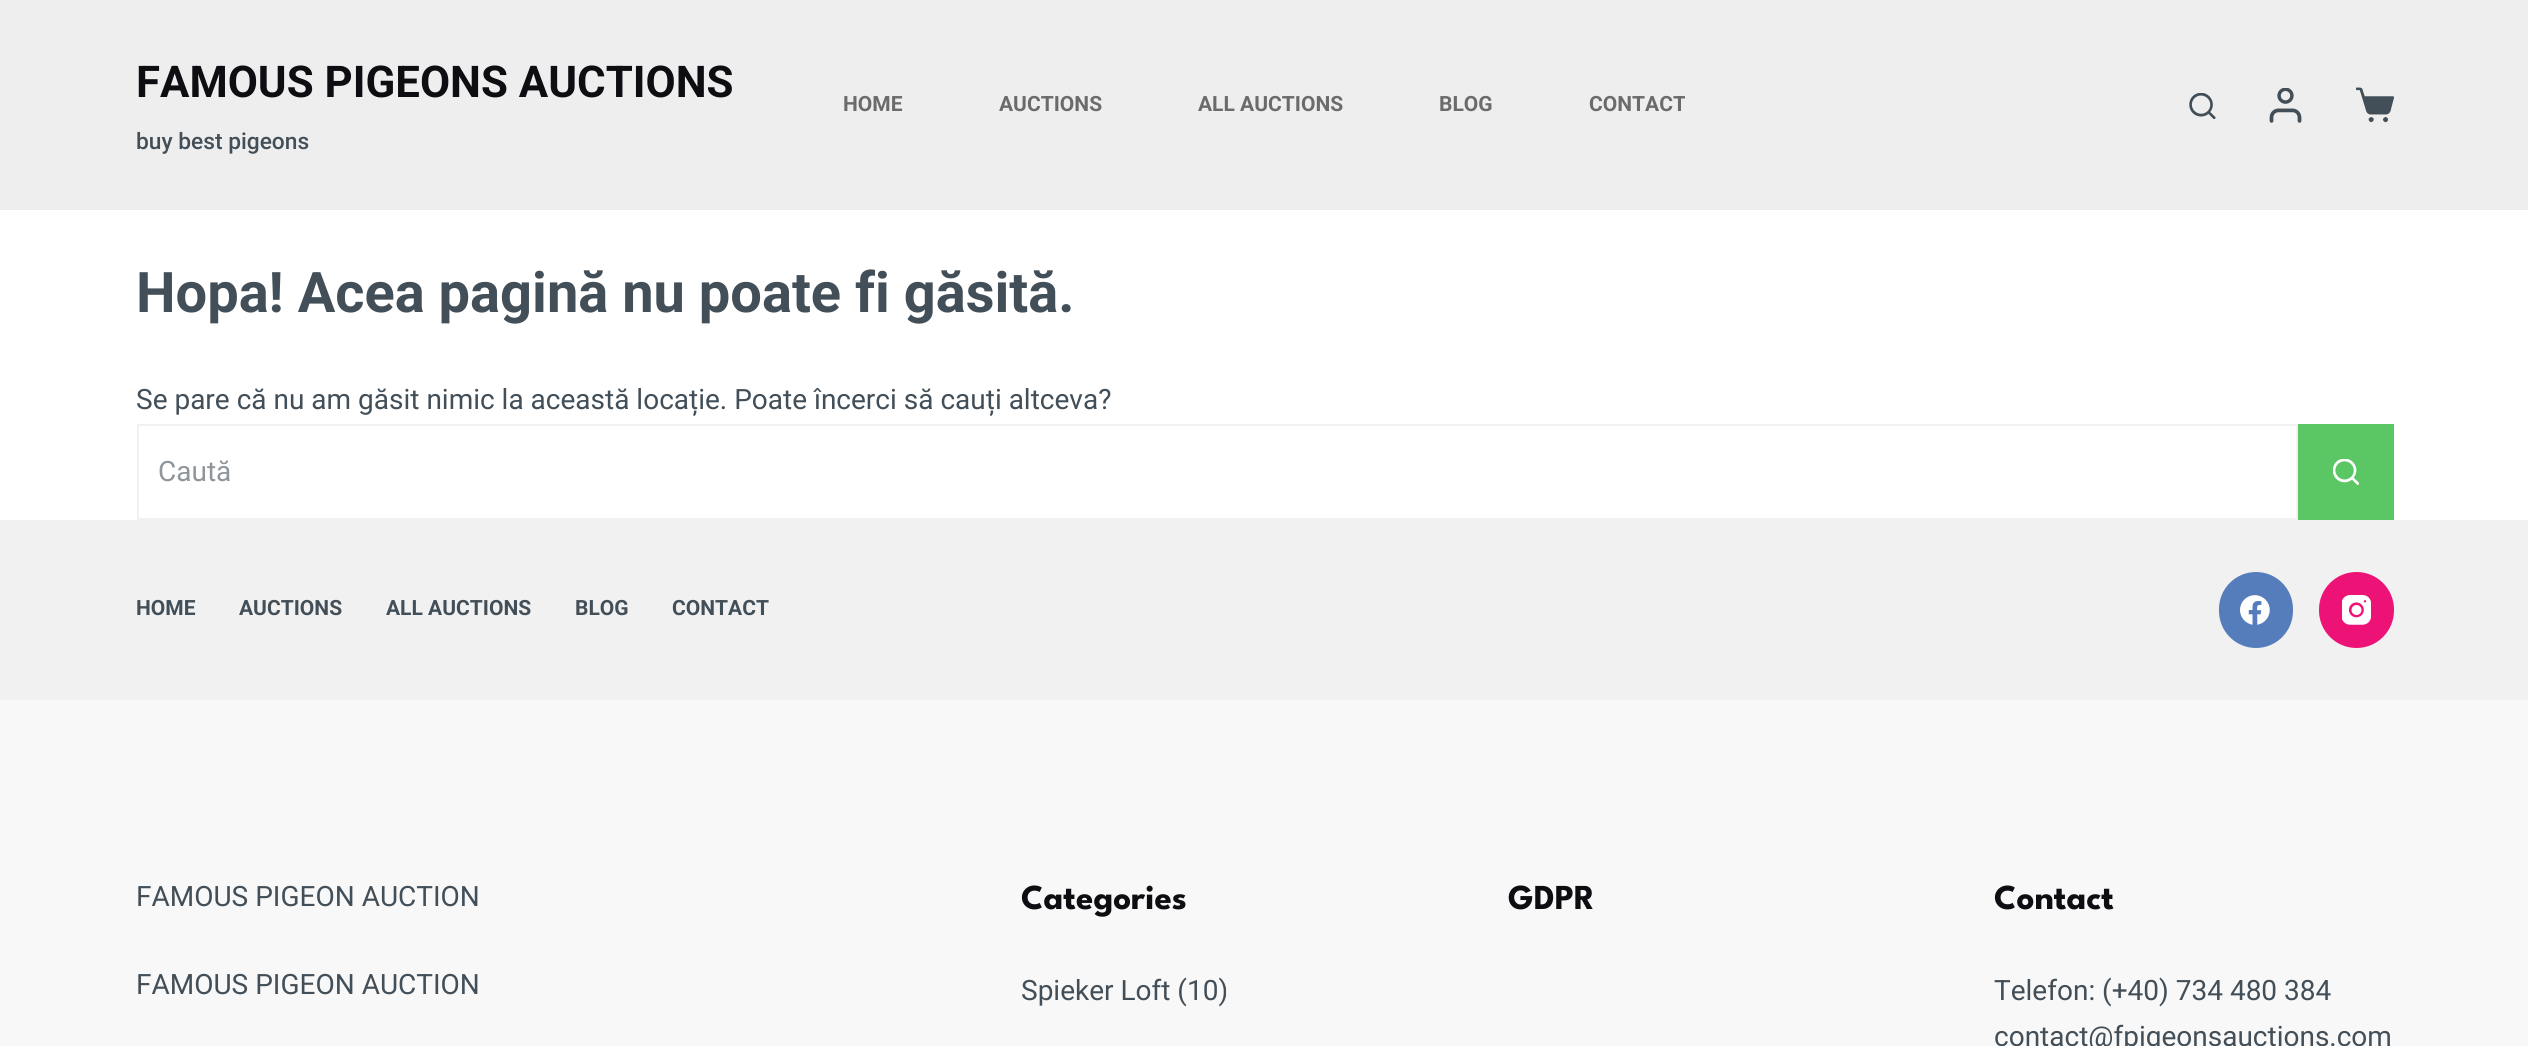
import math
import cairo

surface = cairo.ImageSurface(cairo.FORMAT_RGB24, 2528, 1046)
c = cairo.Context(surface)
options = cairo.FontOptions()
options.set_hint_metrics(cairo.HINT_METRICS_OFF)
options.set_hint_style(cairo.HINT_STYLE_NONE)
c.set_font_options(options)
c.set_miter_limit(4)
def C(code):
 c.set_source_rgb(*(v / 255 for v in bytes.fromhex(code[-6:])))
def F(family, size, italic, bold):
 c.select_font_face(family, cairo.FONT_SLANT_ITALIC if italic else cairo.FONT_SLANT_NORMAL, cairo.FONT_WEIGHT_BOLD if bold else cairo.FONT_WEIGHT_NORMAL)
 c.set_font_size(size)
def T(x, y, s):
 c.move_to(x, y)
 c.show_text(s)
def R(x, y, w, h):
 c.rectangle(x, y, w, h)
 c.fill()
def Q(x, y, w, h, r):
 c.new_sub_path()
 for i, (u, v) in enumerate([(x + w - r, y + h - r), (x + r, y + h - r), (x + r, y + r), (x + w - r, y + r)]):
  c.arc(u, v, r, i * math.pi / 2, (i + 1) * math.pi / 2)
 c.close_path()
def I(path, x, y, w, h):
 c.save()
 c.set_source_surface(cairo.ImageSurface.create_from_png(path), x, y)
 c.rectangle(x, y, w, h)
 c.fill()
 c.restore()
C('ffffff')
c.paint()
C('eeeeee')
R(0,0,2528,210)
F('Roboto',43.75,0,1)
C('0e0d12')
T(136,97,'FAMOUS PIGEONS AUCTIONS')
F('Roboto Medium',22.75,0,0)
C('434f58')
T(136,149,'buy best pigeons')
F('Roboto',21,0,1)
C('6b6b6b')
T(843,111,'HOME')
T(999,111,'AUCTIONS')
T(1198,111,'ALL AUCTIONS')
T(1439,111,'BLOG')
c.save()
c.rectangle(844,0,841,210)
c.clip()
T(1589,111,'CONTACT')
c.restore()
I('1.png',2189,93,27,26)
I('2.png',2269,88,33,35)
I('3.png',2356,87,38,36)
F('Roboto',56,0,1)
C('434f58')
T(136,312,'Hopa! Acea pagină nu poate fi găsită.')
F('Roboto',28,0,0)
T(136,409,'Se pare că nu am găsit nimic la această locație. Poate încerci să cauți altceva?')
c.rectangle(138,425,2159,94)
C('f1f1f1')
c.stroke()
C('8e959b')
T(158,481,'Caută')
C('5bc664')
R(2298,424,96,96)
I('4.png',2333,459,26,26)
C('f8f8f8')
R(0,700,2528,346)
C('f1f1f1')
R(0,520,2528,180)
F('Roboto',21,0,1)
C('434f58')
T(136,615,'HOME')
T(239,615,'AUCTIONS')
T(386,615,'ALL AUCTIONS')
T(575,615,'BLOG')
T(672,615,'CONTACT')
C('557dbc')
Q(2219,572,74,76,37)
c.fill()
I('5.png',2240,595,30,30)
C('ed1376')
Q(2319,572,75,76,37.5)
c.fill()
I('6.png',2342,595,29,30)
F('Roboto',28,0,0)
C('434f58')
T(136,906,'FAMOUS PIGEON AUCTION')
T(136,994,'FAMOUS PIGEON AUCTION')
F('League Spartan',35,0,1)
C('0e0d12')
T(1021,909,'Categories')
F('Roboto',28,0,0)
C('434f58')
T(1021,1000,'Spieker Loft (10)')
F('League Spartan',35,0,1)
C('0e0d12')
T(1508,909,'GDPR')
T(1994,909,'Contact')
F('Roboto',28,0,0)
C('434f58')
T(1994,1000,'Telefon: (+40) 734 480 384')
T(1994,1046,'contact@fpigeonsauctions.com')
surface.write_to_png('o.png')
